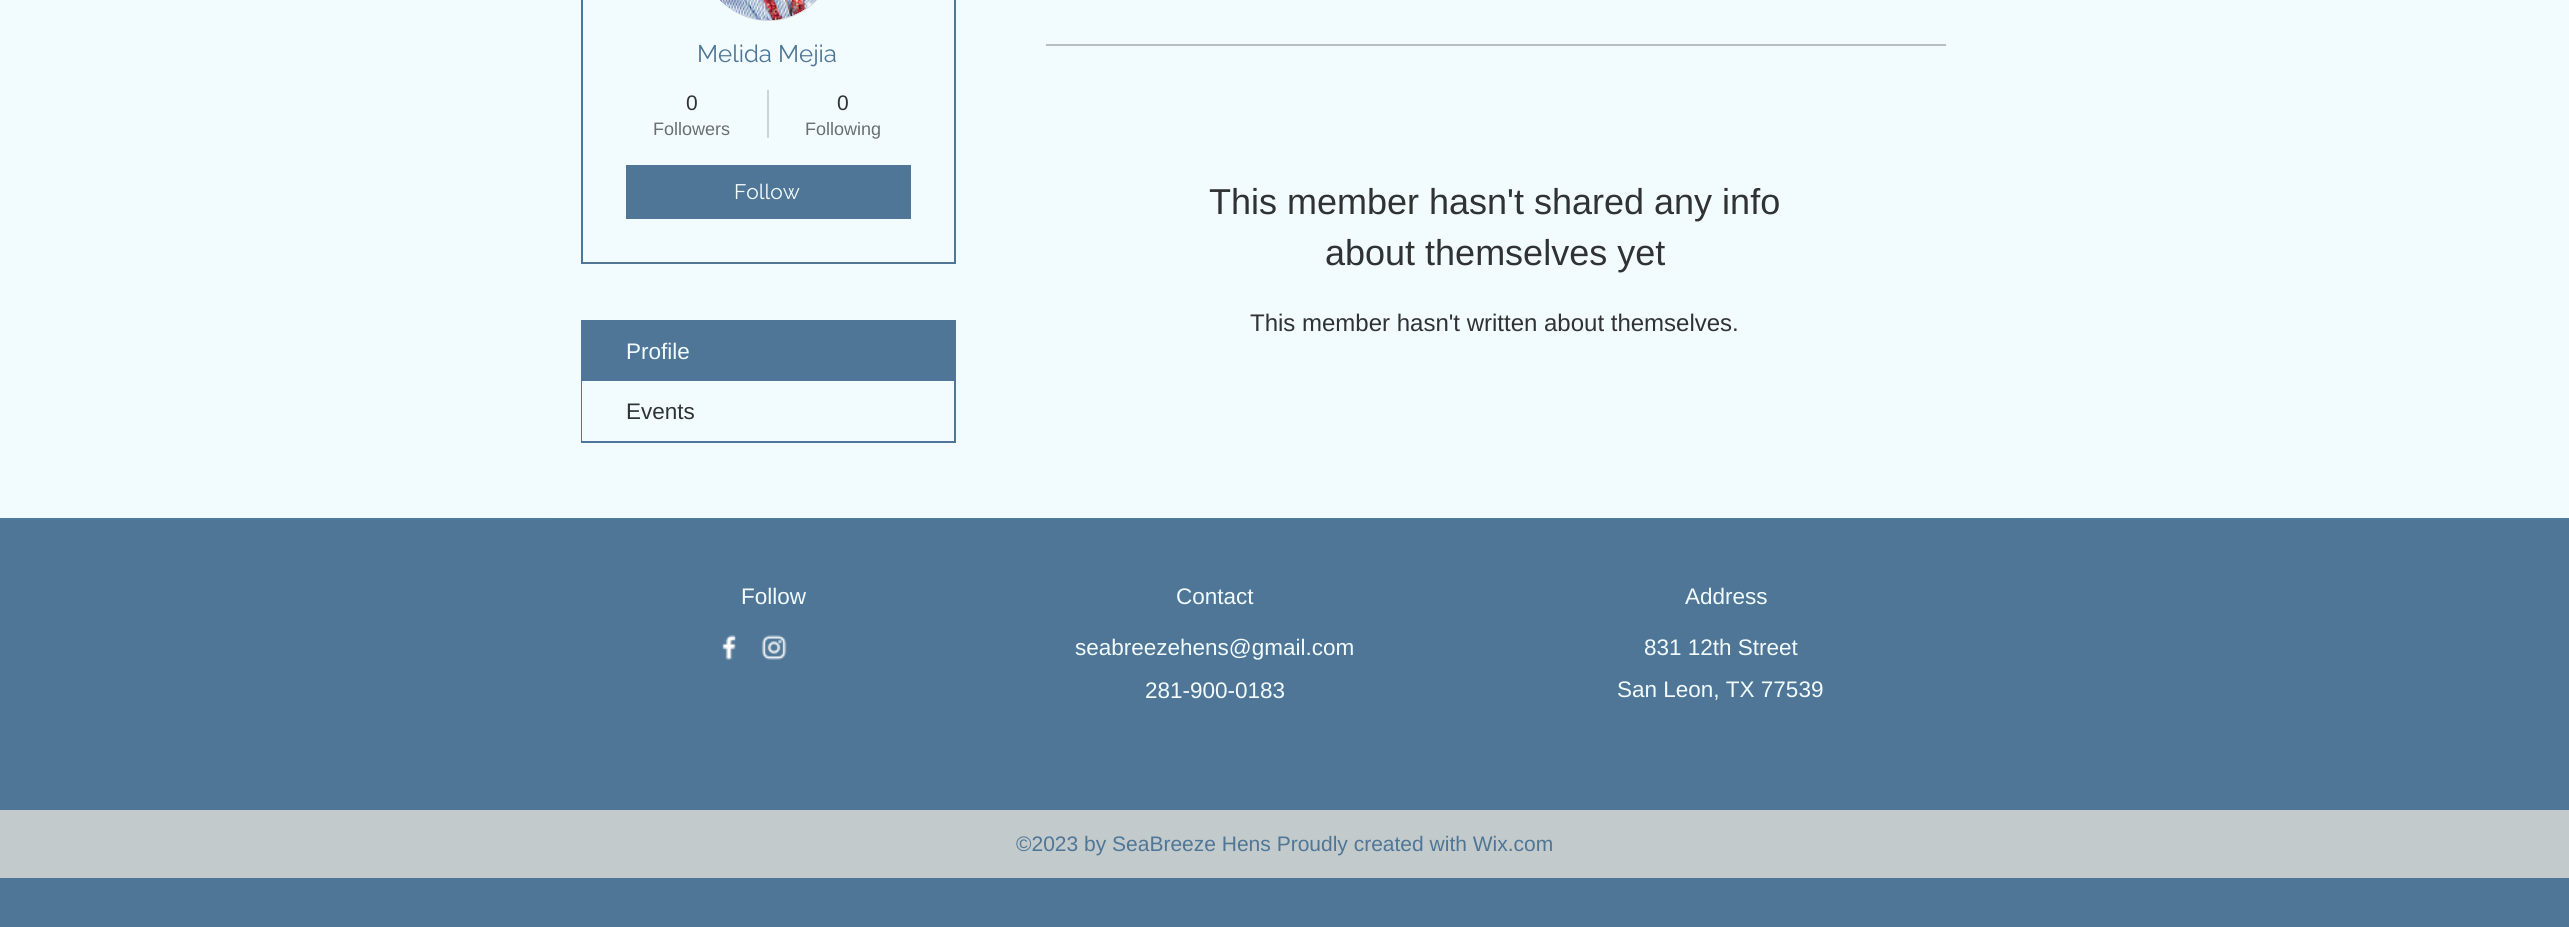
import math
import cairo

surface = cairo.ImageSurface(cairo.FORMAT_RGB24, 2569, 927)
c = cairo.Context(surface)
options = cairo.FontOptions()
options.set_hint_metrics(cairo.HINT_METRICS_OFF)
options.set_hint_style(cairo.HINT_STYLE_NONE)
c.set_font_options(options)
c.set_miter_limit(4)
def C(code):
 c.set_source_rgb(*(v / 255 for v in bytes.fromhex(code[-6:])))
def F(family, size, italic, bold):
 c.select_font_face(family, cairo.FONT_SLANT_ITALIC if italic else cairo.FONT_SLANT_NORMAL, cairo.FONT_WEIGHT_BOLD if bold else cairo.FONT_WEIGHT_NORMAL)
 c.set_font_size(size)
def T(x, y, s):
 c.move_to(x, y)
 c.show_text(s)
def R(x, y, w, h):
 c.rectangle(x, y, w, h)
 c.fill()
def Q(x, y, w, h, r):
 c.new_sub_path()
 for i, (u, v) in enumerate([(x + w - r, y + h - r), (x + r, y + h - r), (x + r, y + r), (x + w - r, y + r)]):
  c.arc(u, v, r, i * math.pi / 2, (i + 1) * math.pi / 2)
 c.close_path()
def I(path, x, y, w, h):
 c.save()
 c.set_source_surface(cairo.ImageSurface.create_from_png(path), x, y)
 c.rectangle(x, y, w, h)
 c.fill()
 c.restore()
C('f2fcff')
c.paint()
c.rectangle(582,-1,373,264)
C('4f7696')
c.stroke()
C('d8d8d8')
Q(701,-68,135,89,67.5)
c.fill()
I('1.png',720,0,96,21)
F('Raleway',24,0,0)
C('4f7696')
T(697,62,'Melida Mejia')
F('Liberation Sans',21,0,0)
C('303233')
T(686,110,'0')
F('Liberation Sans',18,0,0)
C('6a6f70')
T(653,135,'Followers')
C('cbd4d6')
R(767,90,2,48)
F('Liberation Sans',21,0,0)
C('303233')
T(837,110,'0')
F('Liberation Sans',18,0,0)
C('6a6f70')
T(805,135,'Following')
C('4f7696')
R(626,165,285,54)
F('Raleway',21,0,0)
C('f2fcff')
T(734,199,'Follow')
c.rectangle(582,321,373,121)
C('4f7696')
c.stroke()
R(583,322,371,59)
F('Liberation Sans',22.5,0,0)
C('f2fcff')
T(626,359,'Profile')
R(582,381,1,60)
C('303233')
T(626,419,'Events')
C('b8bfc2')
R(1046,44,900,2)
F('Liberation Sans',36,0,0)
C('303233')
T(1209,214,'This member hasn\'t shared any info')
T(1325,265,'about themselves yet')
F('Liberation Sans',24,0,0)
T(1250,331,'This member hasn\'t written about themselves.')
C('4f7696')
R(0,520,2569,407)
C('517b9c')
R(0,518,2569,2)
C('4f7696')
R(551,519,1470,1)
F('Liberation Sans',22.5,0,0)
C('f2fcff')
T(741,604,'Follow')
T(1176,604,'Contact')
T(1685,604,'Address')
I('2.png',722,635,14,25)
I('3.png',761,635,26,25)
T(1075,655,'seabreezehens@gmail.com')
T(1644,655,'831 12th Street')
T(1617,697,'San Leon, TX 77539')
T(1145,698,'281-900-0183')
C('c2cacc')
R(0,810,2569,68)
F('Liberation Sans',21,0,0)
C('4f7696')
T(1016,851,'©2023 by SeaBreeze Hens Proudly created with Wix.com')
surface.write_to_png('o.png')
